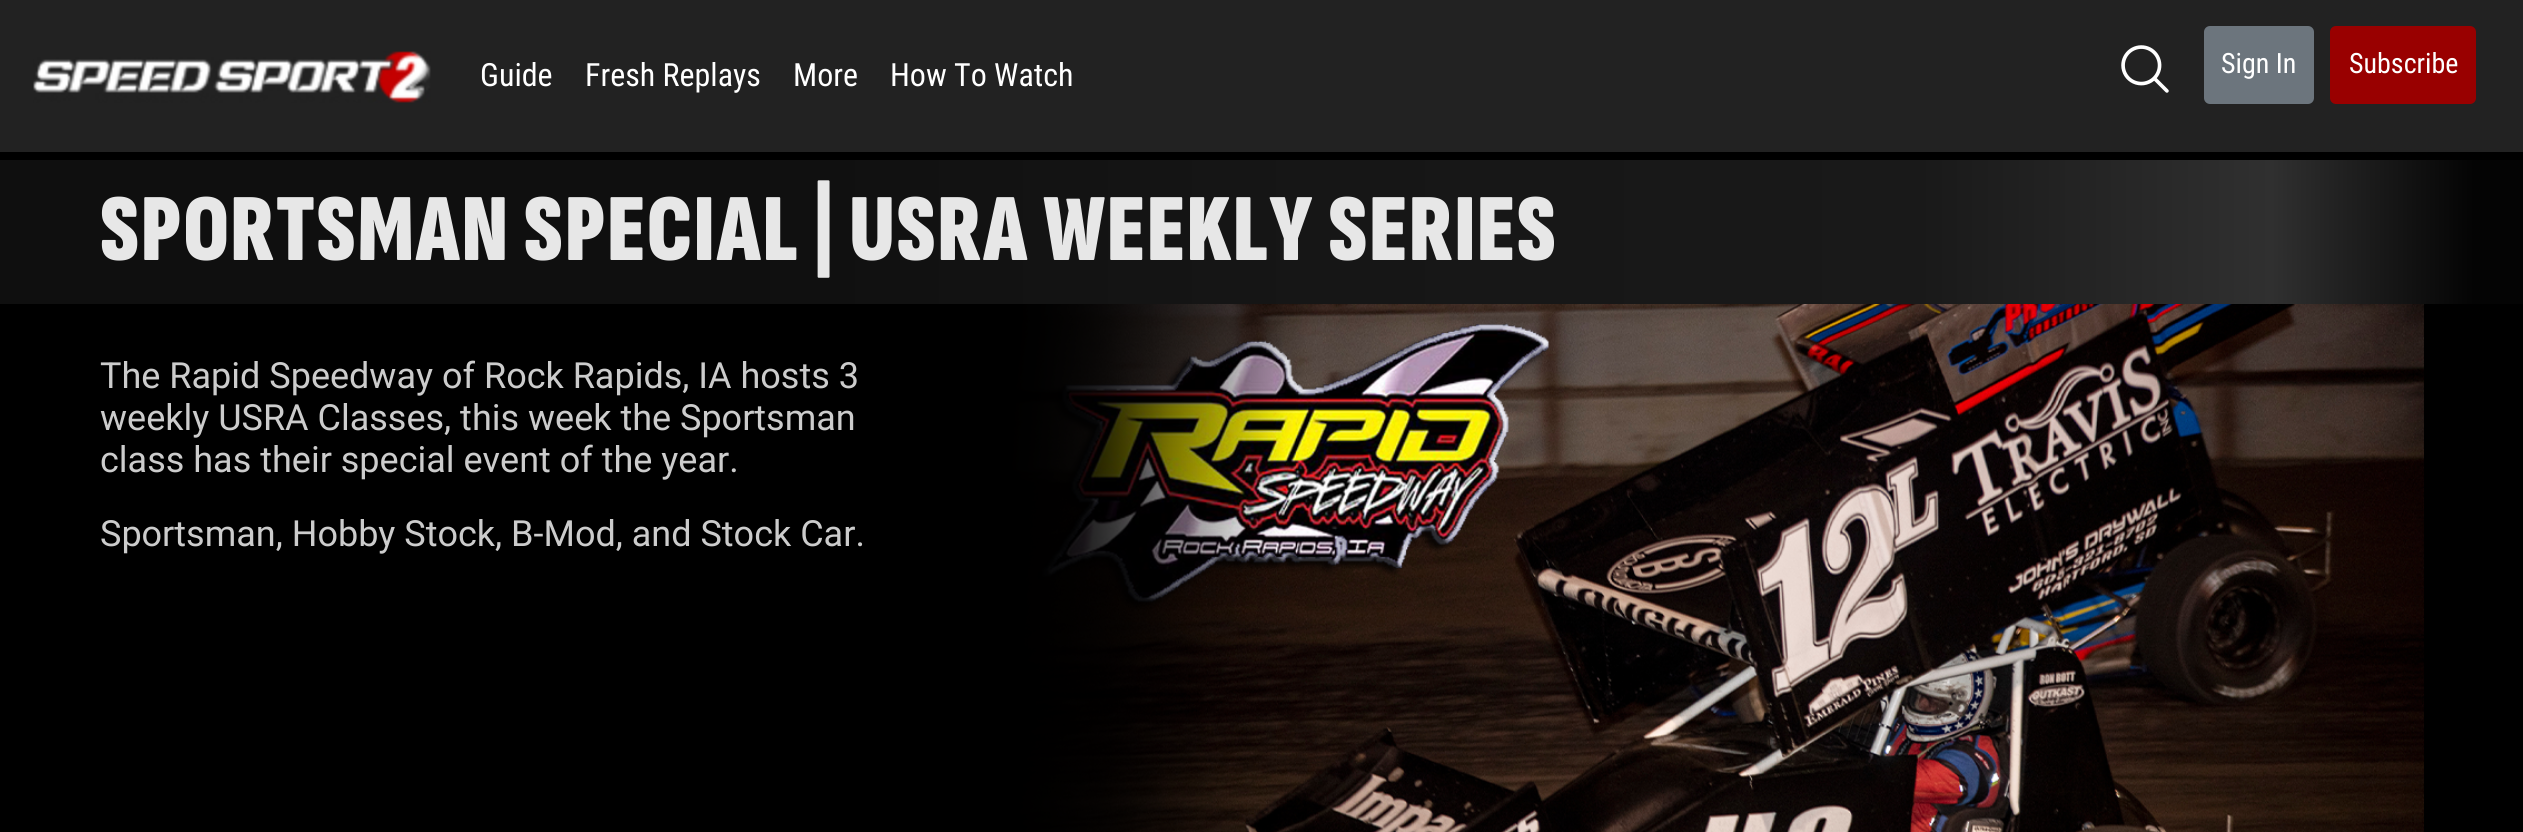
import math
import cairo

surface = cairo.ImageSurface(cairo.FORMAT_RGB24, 2523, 832)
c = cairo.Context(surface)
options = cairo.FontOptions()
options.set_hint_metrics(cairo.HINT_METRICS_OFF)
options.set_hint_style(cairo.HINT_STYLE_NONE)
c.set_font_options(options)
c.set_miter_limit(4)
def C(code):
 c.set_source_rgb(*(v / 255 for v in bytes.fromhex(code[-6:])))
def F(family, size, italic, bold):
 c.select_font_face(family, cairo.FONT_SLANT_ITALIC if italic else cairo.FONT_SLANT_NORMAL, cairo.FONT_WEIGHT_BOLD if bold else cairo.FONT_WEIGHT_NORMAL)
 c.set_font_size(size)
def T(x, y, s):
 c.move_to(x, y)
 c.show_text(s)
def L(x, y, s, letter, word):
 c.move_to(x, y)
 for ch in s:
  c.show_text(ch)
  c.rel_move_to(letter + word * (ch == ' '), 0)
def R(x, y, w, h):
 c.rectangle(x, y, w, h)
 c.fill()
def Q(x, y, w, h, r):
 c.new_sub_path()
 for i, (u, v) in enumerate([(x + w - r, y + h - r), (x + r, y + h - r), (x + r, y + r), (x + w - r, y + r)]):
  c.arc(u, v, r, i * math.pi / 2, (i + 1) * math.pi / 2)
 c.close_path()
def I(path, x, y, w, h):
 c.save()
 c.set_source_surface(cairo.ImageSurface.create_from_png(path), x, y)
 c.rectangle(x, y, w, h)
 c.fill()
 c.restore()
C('000000')
c.paint()
C('222222')
R(0,0,2523,152)
I('1.png',33,51,398,52)
F('Roboto Condensed',32,0,0)
C('ffffff')
T(480,86,'Guide')
T(585,86,'Fresh Replays')
T(793,86,'More')
T(890,86,'How To Watch')
I('2.png',2121,45,48,48)
C('6c757d')
Q(2205,27,108,76,5)
c.fill_preserve()
c.stroke()
F('Roboto Condensed',28,0,0)
C('ffffff')
T(2221,73,'Sign In')
C('990000')
Q(2331,27,144,76,5)
c.fill_preserve()
c.stroke()
C('ffffff')
T(2349,73,'Subscribe')
gradient = cairo.LinearGradient(0,232,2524,232)
gradient.add_color_stop_rgba(.29,0.059,0.059,0.059,1)
gradient.add_color_stop_rgba(.52,0.086,0.086,0.086,1)
gradient.add_color_stop_rgba(.76,0.098,0.098,0.098,1)
gradient.add_color_stop_rgba(.9,0.188,0.188,0.188,1)
gradient.add_color_stop_rgba(.98,0.016,0.016,0.016,1)
c.set_source(gradient)
R(0,160,2523,144)
F('Sofia Sans Extra Condensed Black',96,0,0)
C('e7e7e7')
L(100,260,'SPORTSMAN SPECIAL | USRA WEEKLY SERIES',1.9,0)
F('Roboto',36,0,0)
C('cccccc')
T(100,388,'The Rapid Speedway of Rock Rapids, IA hosts 3')
T(100,430,'weekly USRA Classes, this week the Sportsman')
T(100,472,'class has their special event of the year.')
T(100,546,'Sportsman, Hobby Stock, B-Mod, and Stock Car.')
I('3.png',1000,304,1424,528)
surface.write_to_png('o.png')
